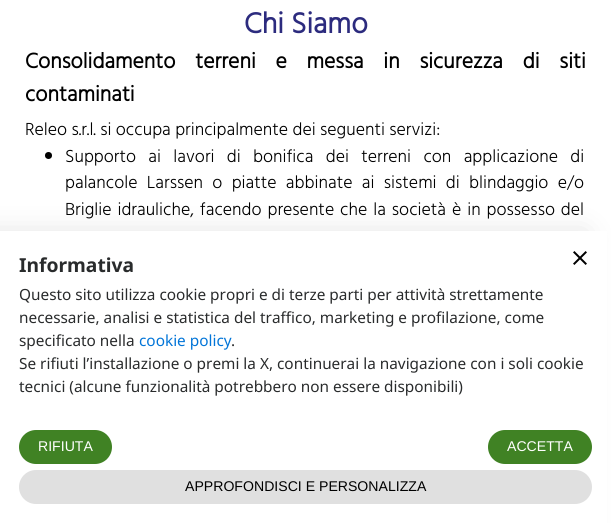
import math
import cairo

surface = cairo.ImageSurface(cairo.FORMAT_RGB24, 611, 523)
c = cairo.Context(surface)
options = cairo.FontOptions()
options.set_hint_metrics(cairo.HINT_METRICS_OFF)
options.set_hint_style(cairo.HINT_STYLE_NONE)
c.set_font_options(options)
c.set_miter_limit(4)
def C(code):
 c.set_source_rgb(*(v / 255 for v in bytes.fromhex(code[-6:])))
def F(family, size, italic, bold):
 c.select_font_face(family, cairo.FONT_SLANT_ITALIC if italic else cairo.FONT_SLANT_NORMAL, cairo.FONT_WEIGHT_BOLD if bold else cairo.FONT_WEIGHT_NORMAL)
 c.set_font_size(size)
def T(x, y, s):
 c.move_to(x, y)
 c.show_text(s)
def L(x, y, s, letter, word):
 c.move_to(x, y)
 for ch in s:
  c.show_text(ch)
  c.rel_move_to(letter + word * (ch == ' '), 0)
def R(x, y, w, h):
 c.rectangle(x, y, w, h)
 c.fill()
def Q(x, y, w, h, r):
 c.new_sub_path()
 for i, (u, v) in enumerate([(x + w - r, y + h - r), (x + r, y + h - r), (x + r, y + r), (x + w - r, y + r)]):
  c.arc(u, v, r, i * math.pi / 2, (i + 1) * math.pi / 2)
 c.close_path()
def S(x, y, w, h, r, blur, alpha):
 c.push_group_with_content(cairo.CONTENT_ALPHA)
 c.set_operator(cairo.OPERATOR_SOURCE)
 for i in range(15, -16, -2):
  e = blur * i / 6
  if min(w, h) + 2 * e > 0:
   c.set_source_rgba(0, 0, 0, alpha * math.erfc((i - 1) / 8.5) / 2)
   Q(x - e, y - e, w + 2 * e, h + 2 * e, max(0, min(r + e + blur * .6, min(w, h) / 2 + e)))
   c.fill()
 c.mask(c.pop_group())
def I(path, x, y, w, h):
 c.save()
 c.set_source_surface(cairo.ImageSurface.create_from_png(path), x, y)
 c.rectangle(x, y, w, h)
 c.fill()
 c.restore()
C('ffffff')
c.paint()
F('Hind Vadodara',29.5,0,1)
C('2c2b7e')
T(244,33,'Chi Siamo')
F('Hind Vadodara',21.75,0,1)
C('000000')
L(25,68,'Consolidamento terreni e messa in sicurezza di siti',0,14.5)
T(25,101,'contaminati')
F('Hind Vadodara Light',17.9,0,0)
T(25,135,'Releo s.r.l. si occupa principalmente dei seguenti servizi:')
c.new_path()
c.arc(48.5,155.5,3.5,0,2 * math.pi)
c.fill()
L(65,162,'Supporto ai lavori di bonifica dei terreni con applicazione di',0,8)
L(65,188,'palancole Larssen o piatte abbinate ai sistemi di blindaggio e/o',0,5)
L(65,215,'Briglie idrauliche, facendo presente che la società è in possesso del',0,1.6)
C('000000')
S(-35,233,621,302,0,15,.12)
C('ffffff')
R(0,231,607,292)
F('Noto Sans',19.25,0,1)
C('292b2c')
T(19,272,'Informativa')
I('1.png',573,251,14,14)
F('Noto Sans',15.35,0,0)
T(19,300,'Questo sito utilizza cookie propri e di terze parti per attività strettamente')
T(19,323,'necessarie, analisi e statistica del traffico, marketing e profilazione, come')
T(19,346,'specificato nella')
C('0275d8')
T(139,346,'cookie policy')
C('292b2c')
T(231,346,'.')
T(19,369,'Se rifiuti l’installazione o premi la X, continuerai la navigazione con i soli cookie')
T(19,392,'tecnici (alcune funzionalità potrebbero non essere disponibili)')
C('408224')
Q(19,430,93,34,17)
c.fill()
F('Liberation Sans',14.1,0,0)
C('ffffff')
T(38,451,'RIFIUTA')
C('408224')
Q(488,430,104,34,17)
c.fill()
C('ffffff')
T(507,451,'ACCETTA')
C('e0e0e0')
Q(19,470,573,34,17)
c.fill()
C('000000')
T(185,491,'APPROFONDISCI E PERSONALIZZA')
surface.write_to_png('o.png')
